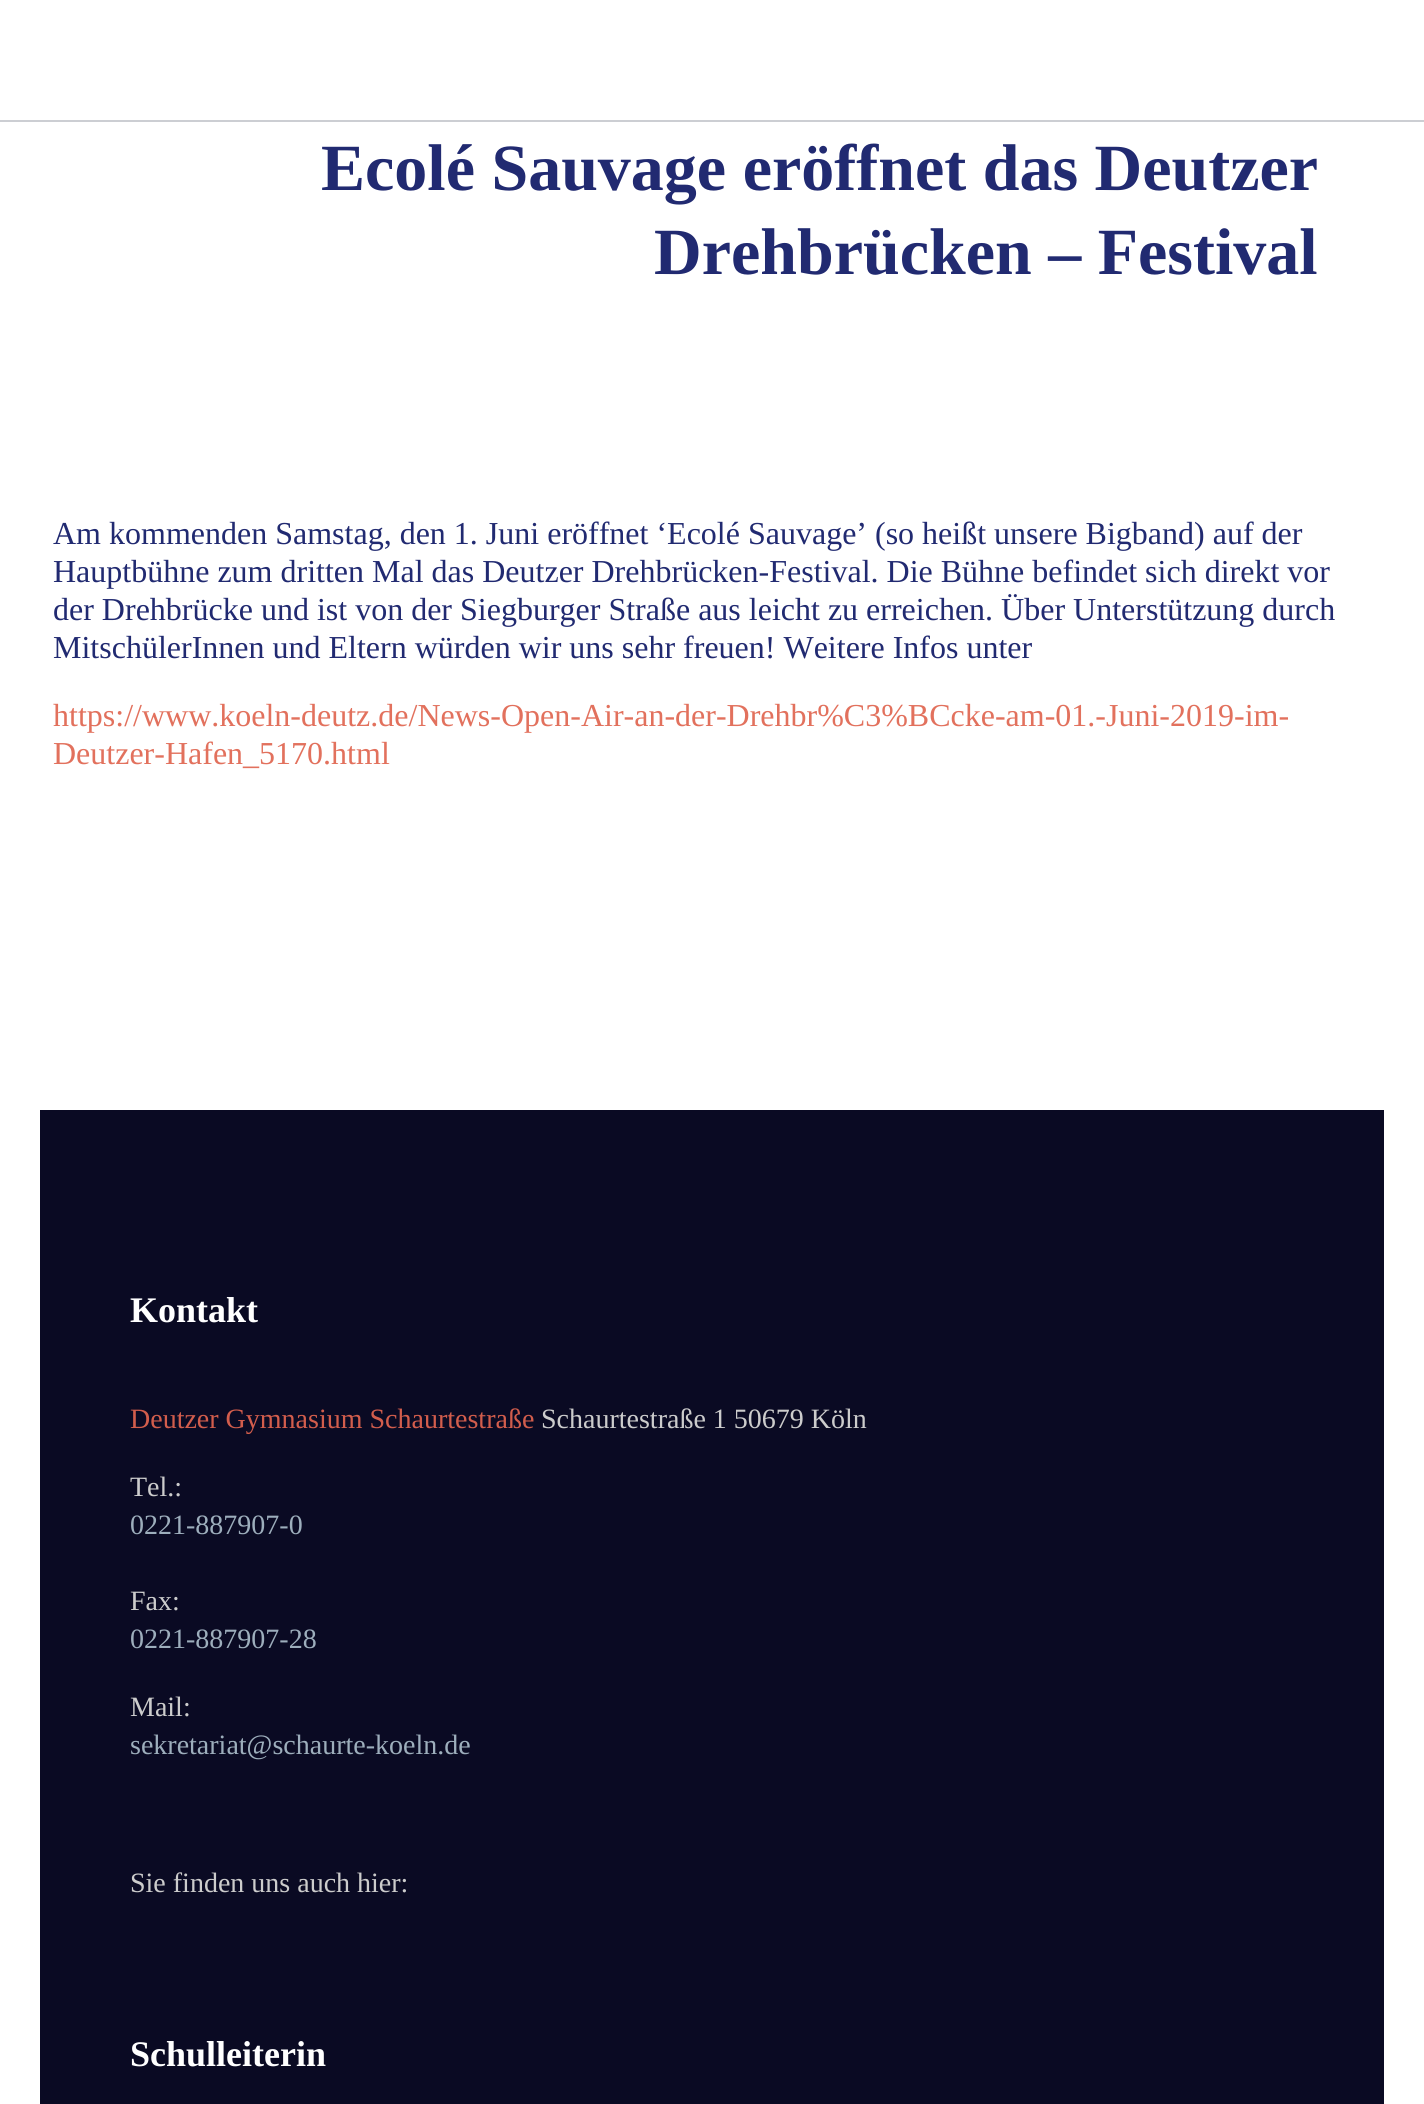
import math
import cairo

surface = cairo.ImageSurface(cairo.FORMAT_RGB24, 1424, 2104)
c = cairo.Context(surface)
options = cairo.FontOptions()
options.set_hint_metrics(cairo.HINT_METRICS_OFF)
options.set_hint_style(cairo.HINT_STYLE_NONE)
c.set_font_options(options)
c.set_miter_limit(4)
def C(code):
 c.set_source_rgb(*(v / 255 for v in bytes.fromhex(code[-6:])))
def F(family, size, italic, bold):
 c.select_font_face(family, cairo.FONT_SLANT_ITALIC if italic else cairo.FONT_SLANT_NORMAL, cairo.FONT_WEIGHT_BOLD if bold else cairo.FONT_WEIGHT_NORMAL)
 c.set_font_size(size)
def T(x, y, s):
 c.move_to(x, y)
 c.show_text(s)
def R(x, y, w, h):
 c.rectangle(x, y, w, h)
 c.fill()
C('ffffff')
c.paint()
C('ccced3')
R(0,120,1424,2)
F('Liberation Serif',66,0,1)
C('212a71')
T(321,190,'Ecolé Sauvage eröffnet das Deutzer')
T(654,274,'Drehbrücken – Festival')
F('Liberation Serif',32,0,0)
T(53,544,'Am kommenden Samstag, den 1. Juni eröffnet ‘Ecolé Sauvage’ (so heißt unsere Bigband) auf der')
T(53,582,'Hauptbühne zum dritten Mal das Deutzer Drehbrücken-Festival. Die Bühne befindet sich direkt vor')
T(53,620,'der Drehbrücke und ist von der Siegburger Straße aus leicht zu erreichen. Über Unterstützung durch')
T(53,658,'MitschülerInnen und Eltern würden wir uns sehr freuen! Weitere Infos unter')
C('e2715d')
T(53,726,'https://www.koeln-deutz.de/News-Open-Air-an-der-Drehbr%C3%BCcke-am-01.-Juni-2019-im-')
T(53,764,'Deutzer-Hafen_5170.html')
C('0a0a23')
R(40,1110,1344,994)
F('Liberation Serif',36,0,1)
C('ffffff')
T(130,1322,'Kontakt')
F('Liberation Serif',28,0,0)
C('d25d4c')
T(130,1428,'Deutzer Gymnasium Schaurtestraße')
C('cccccc')
T(541,1428,'Schaurtestraße 1 50679 Köln')
T(130,1496,'Tel.:')
C('9daebc')
T(130,1534,'0221-887907-0')
C('cccccc')
T(130,1610,'Fax:')
C('9daebc')
T(130,1648,'0221-887907-28')
C('cccccc')
T(130,1716,'Mail:')
C('9daebc')
T(130,1754,'sekretariat@schaurte-koeln.de')
C('cccccc')
T(130,1892,'Sie finden uns auch hier:')
F('Liberation Serif',36,0,1)
C('ffffff')
T(130,2066,'Schulleiterin')
surface.write_to_png('o.png')
